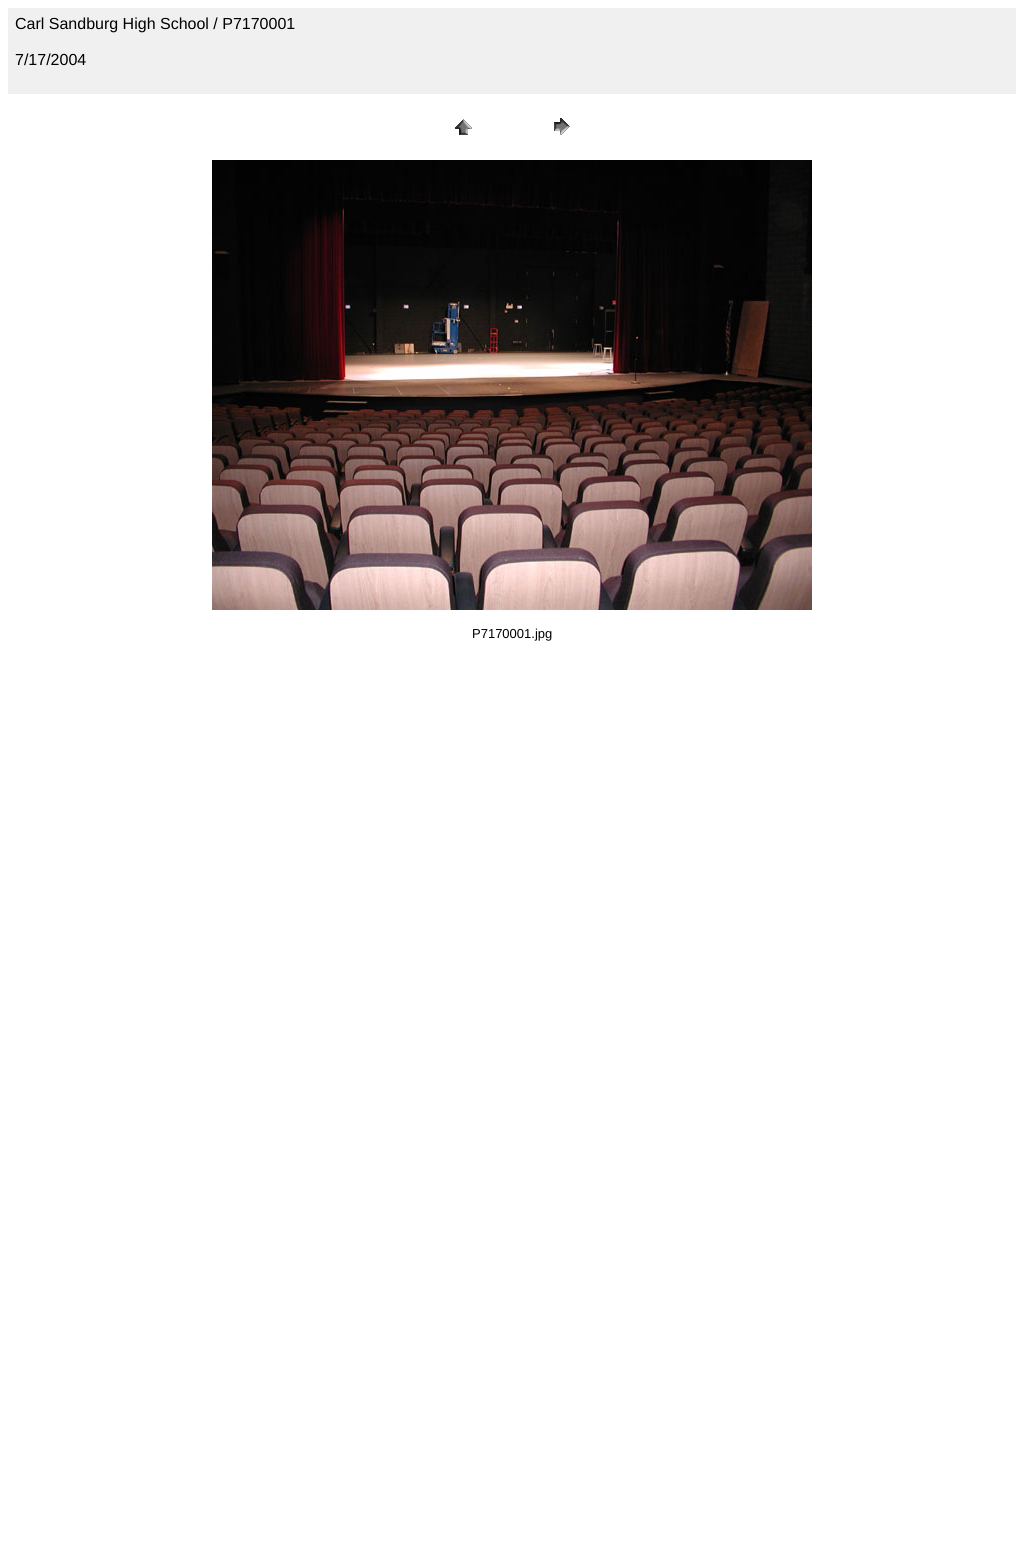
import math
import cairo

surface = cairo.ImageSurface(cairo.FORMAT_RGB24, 1024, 1566)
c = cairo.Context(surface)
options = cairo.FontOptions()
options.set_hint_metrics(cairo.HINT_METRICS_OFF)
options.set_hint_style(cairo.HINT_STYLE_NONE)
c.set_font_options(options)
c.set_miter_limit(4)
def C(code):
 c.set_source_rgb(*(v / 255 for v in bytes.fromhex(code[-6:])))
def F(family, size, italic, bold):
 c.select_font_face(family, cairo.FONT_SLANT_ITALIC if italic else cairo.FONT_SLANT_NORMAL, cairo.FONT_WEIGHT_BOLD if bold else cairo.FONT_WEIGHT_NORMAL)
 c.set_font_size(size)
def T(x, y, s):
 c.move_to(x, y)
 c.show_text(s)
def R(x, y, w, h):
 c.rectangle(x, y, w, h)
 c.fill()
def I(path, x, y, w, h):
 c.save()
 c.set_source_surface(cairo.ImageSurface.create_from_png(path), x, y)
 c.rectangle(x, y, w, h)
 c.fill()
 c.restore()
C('ffffff')
c.paint()
C('f0f0f0')
R(8,8,1008,86)
F('Liberation Sans',16,0,0)
C('000000')
T(15,29,'Carl Sandburg High School / P7170001')
T(15,65,'7/17/2004')
I('1.png',455,119,17,16)
I('2.png',554,118,16,17)
I('3.png',212,160,600,450)
F('Liberation Sans',13,0,0)
T(472,638,'P7170001.jpg')
surface.write_to_png('o.png')
